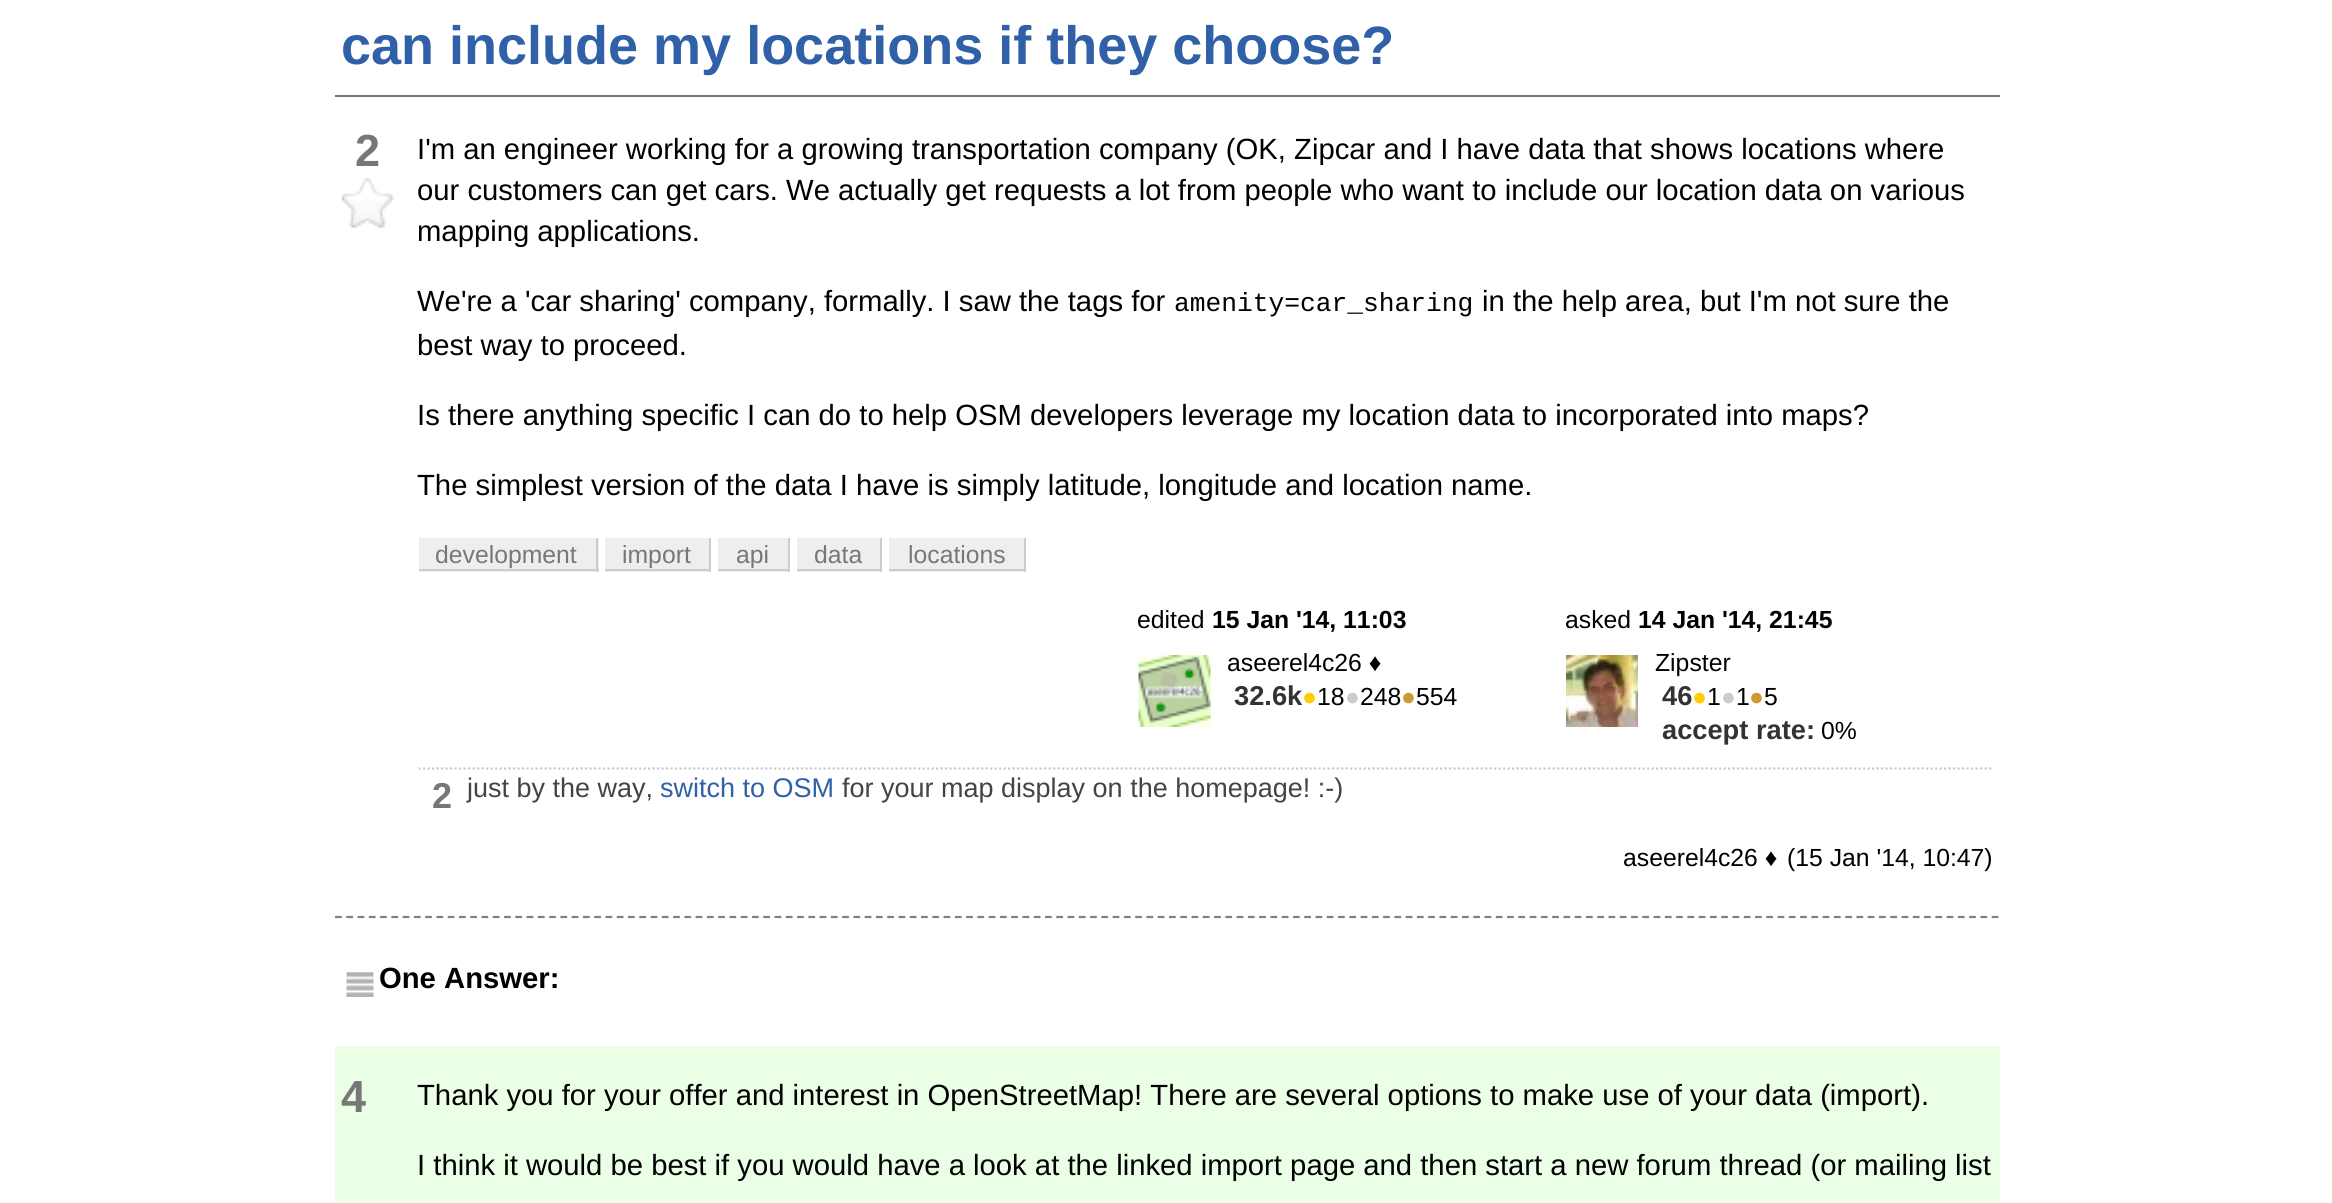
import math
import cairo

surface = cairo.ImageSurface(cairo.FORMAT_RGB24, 2332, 1203)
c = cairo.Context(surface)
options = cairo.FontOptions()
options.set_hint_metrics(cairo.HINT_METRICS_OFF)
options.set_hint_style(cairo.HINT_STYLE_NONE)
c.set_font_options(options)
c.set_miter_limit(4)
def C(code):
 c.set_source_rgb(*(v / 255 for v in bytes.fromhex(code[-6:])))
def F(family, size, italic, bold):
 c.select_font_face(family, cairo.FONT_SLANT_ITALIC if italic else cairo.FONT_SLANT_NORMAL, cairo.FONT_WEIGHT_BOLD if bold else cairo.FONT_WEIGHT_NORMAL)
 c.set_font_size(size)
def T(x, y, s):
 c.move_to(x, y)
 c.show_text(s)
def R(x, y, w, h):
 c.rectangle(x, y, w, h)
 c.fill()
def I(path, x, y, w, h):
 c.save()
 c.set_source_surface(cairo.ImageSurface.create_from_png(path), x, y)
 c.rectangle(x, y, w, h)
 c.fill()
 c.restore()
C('ffffff')
c.paint()
C('777777')
R(335,95,1665,2)
F('Liberation Sans',54,0,1)
C('3060a8')
T(341,64,'can include my locations if they choose?')
F('Liberation Sans',45,0,1)
C('777777')
T(355,166,'2')
I('1.png',342,178,53,50)
F('Liberation Sans',29.25,0,0)
C('000000')
T(417,159,'I\'m an engineer working for a growing transportation company (OK, Zipcar and I have data that shows locations where')
T(417,200,'our customers can get cars. We actually get requests a lot from people who want to include our location data on various')
T(417,241,'mapping applications.')
T(417,311,'We\'re a \'car sharing\' company, formally. I saw the tags for')
F('Liberation Mono',26.25,0,0)
T(1174,311,'amenity=car_sharing')
F('Liberation Sans',29.25,0,0)
T(1482,311,'in the help area, but I\'m not sure the')
T(417,355,'best way to proceed.')
T(417,425,'Is there anything specific I can do to help OSM developers leverage my location data to incorporated into maps?')
T(417,495,'The simplest version of the data I have is simply latitude, longitude and location name.')
C('eeeeee')
R(419,538,180,34)
F('Liberation Sans',24.75,0,0)
C('777777')
T(435,563,'development')
C('cccccc')
R(596,538,2,34)
R(419,569,180,2)
C('eeeeee')
R(605,538,104,34)
C('777777')
T(622,563,'import')
C('cccccc')
R(709,538,2,34)
R(605,569,106,2)
C('eeeeee')
R(718,538,70,34)
C('777777')
T(736,563,'api')
C('cccccc')
R(788,538,2,34)
R(718,569,72,2)
C('eeeeee')
R(797,538,83,34)
C('777777')
T(814,563,'data')
C('cccccc')
R(880,538,2,34)
R(797,569,85,2)
C('eeeeee')
R(889,538,135,34)
C('777777')
T(908,563,'locations')
C('cccccc')
R(1024,538,2,34)
R(889,569,137,2)
C('000000')
T(1137,628,'edited')
F('Liberation Sans',24.75,0,1)
T(1212,628,'15 Jan \'14, 11:03')
I('2.png',1138,655,73,72)
F('Liberation Sans',24.75,0,0)
T(1227,671,'aseerel4c26 ♦')
F('Liberation Sans',27.25,0,1)
C('333333')
T(1234,705,'32.6k')
F('Liberation Sans',24.75,0,0)
C('ffcc00')
T(1302,705,'●')
C('000000')
T(1317,705,'18')
C('cccccc')
T(1345,705,'●')
C('000000')
T(1360,705,'248')
C('cc9933')
T(1401,705,'●')
C('000000')
T(1416,705,'554')
T(1565,628,'asked')
F('Liberation Sans',24.75,0,1)
T(1638,628,'14 Jan \'14, 21:45')
I('3.png',1566,655,72,72)
F('Liberation Sans',24.75,0,0)
T(1655,671,'Zipster')
F('Liberation Sans',27.25,0,1)
C('333333')
T(1662,705,'46')
F('Liberation Sans',24.75,0,0)
C('ffcc00')
T(1692,705,'●')
C('000000')
T(1707,705,'1')
C('cccccc')
T(1721,705,'●')
C('000000')
T(1736,705,'1')
C('cc9933')
T(1749,705,'●')
C('000000')
T(1764,705,'5')
F('Liberation Sans',27.25,0,1)
C('333333')
T(1662,739,'accept rate:')
F('Liberation Sans',24.75,0,0)
C('000000')
T(1821,739,'0%')
c.new_path()
c.move_to(418.5,768.5)
c.line_to(1993.5,768.5)
C('ccccce')
c.set_line_width(2.2)
c.set_dash([2.25,2.25])
c.stroke()
F('Liberation Sans',36,0,1)
C('777777')
T(432,808,'2')
F('Liberation Sans',27,0,0)
C('444444')
T(467,797,'just by the way,')
C('3060a8')
T(660,797,'switch to OSM')
C('444444')
T(842,797,'for your map display on the homepage! :-)')
F('Liberation Sans',24.75,0,0)
C('000000')
T(1623,866,'aseerel4c26 ♦')
T(1787,866,'(15 Jan \'14, 10:47)')
c.new_path()
c.move_to(335,917)
c.line_to(2000,917)
C('808080')
c.set_dash([6.75,4.52])
c.stroke()
I('4.png',346,972,28,25)
F('Liberation Sans',29.25,0,1)
C('000000')
T(379,988,'One Answer:')
C('ebffe6')
R(335,1046,1665,157)
F('Liberation Sans',45,0,1)
C('777777')
T(341,1112,'4')
F('Liberation Sans',29.25,0,0)
C('000000')
T(417,1105,'Thank you for your offer and interest in OpenStreetMap! There are several options to make use of your data (import).')
T(417,1175,'I think it would be best if you would have a look at the linked import page and then start a new forum thread (or mailing list')
surface.write_to_png('o.png')
